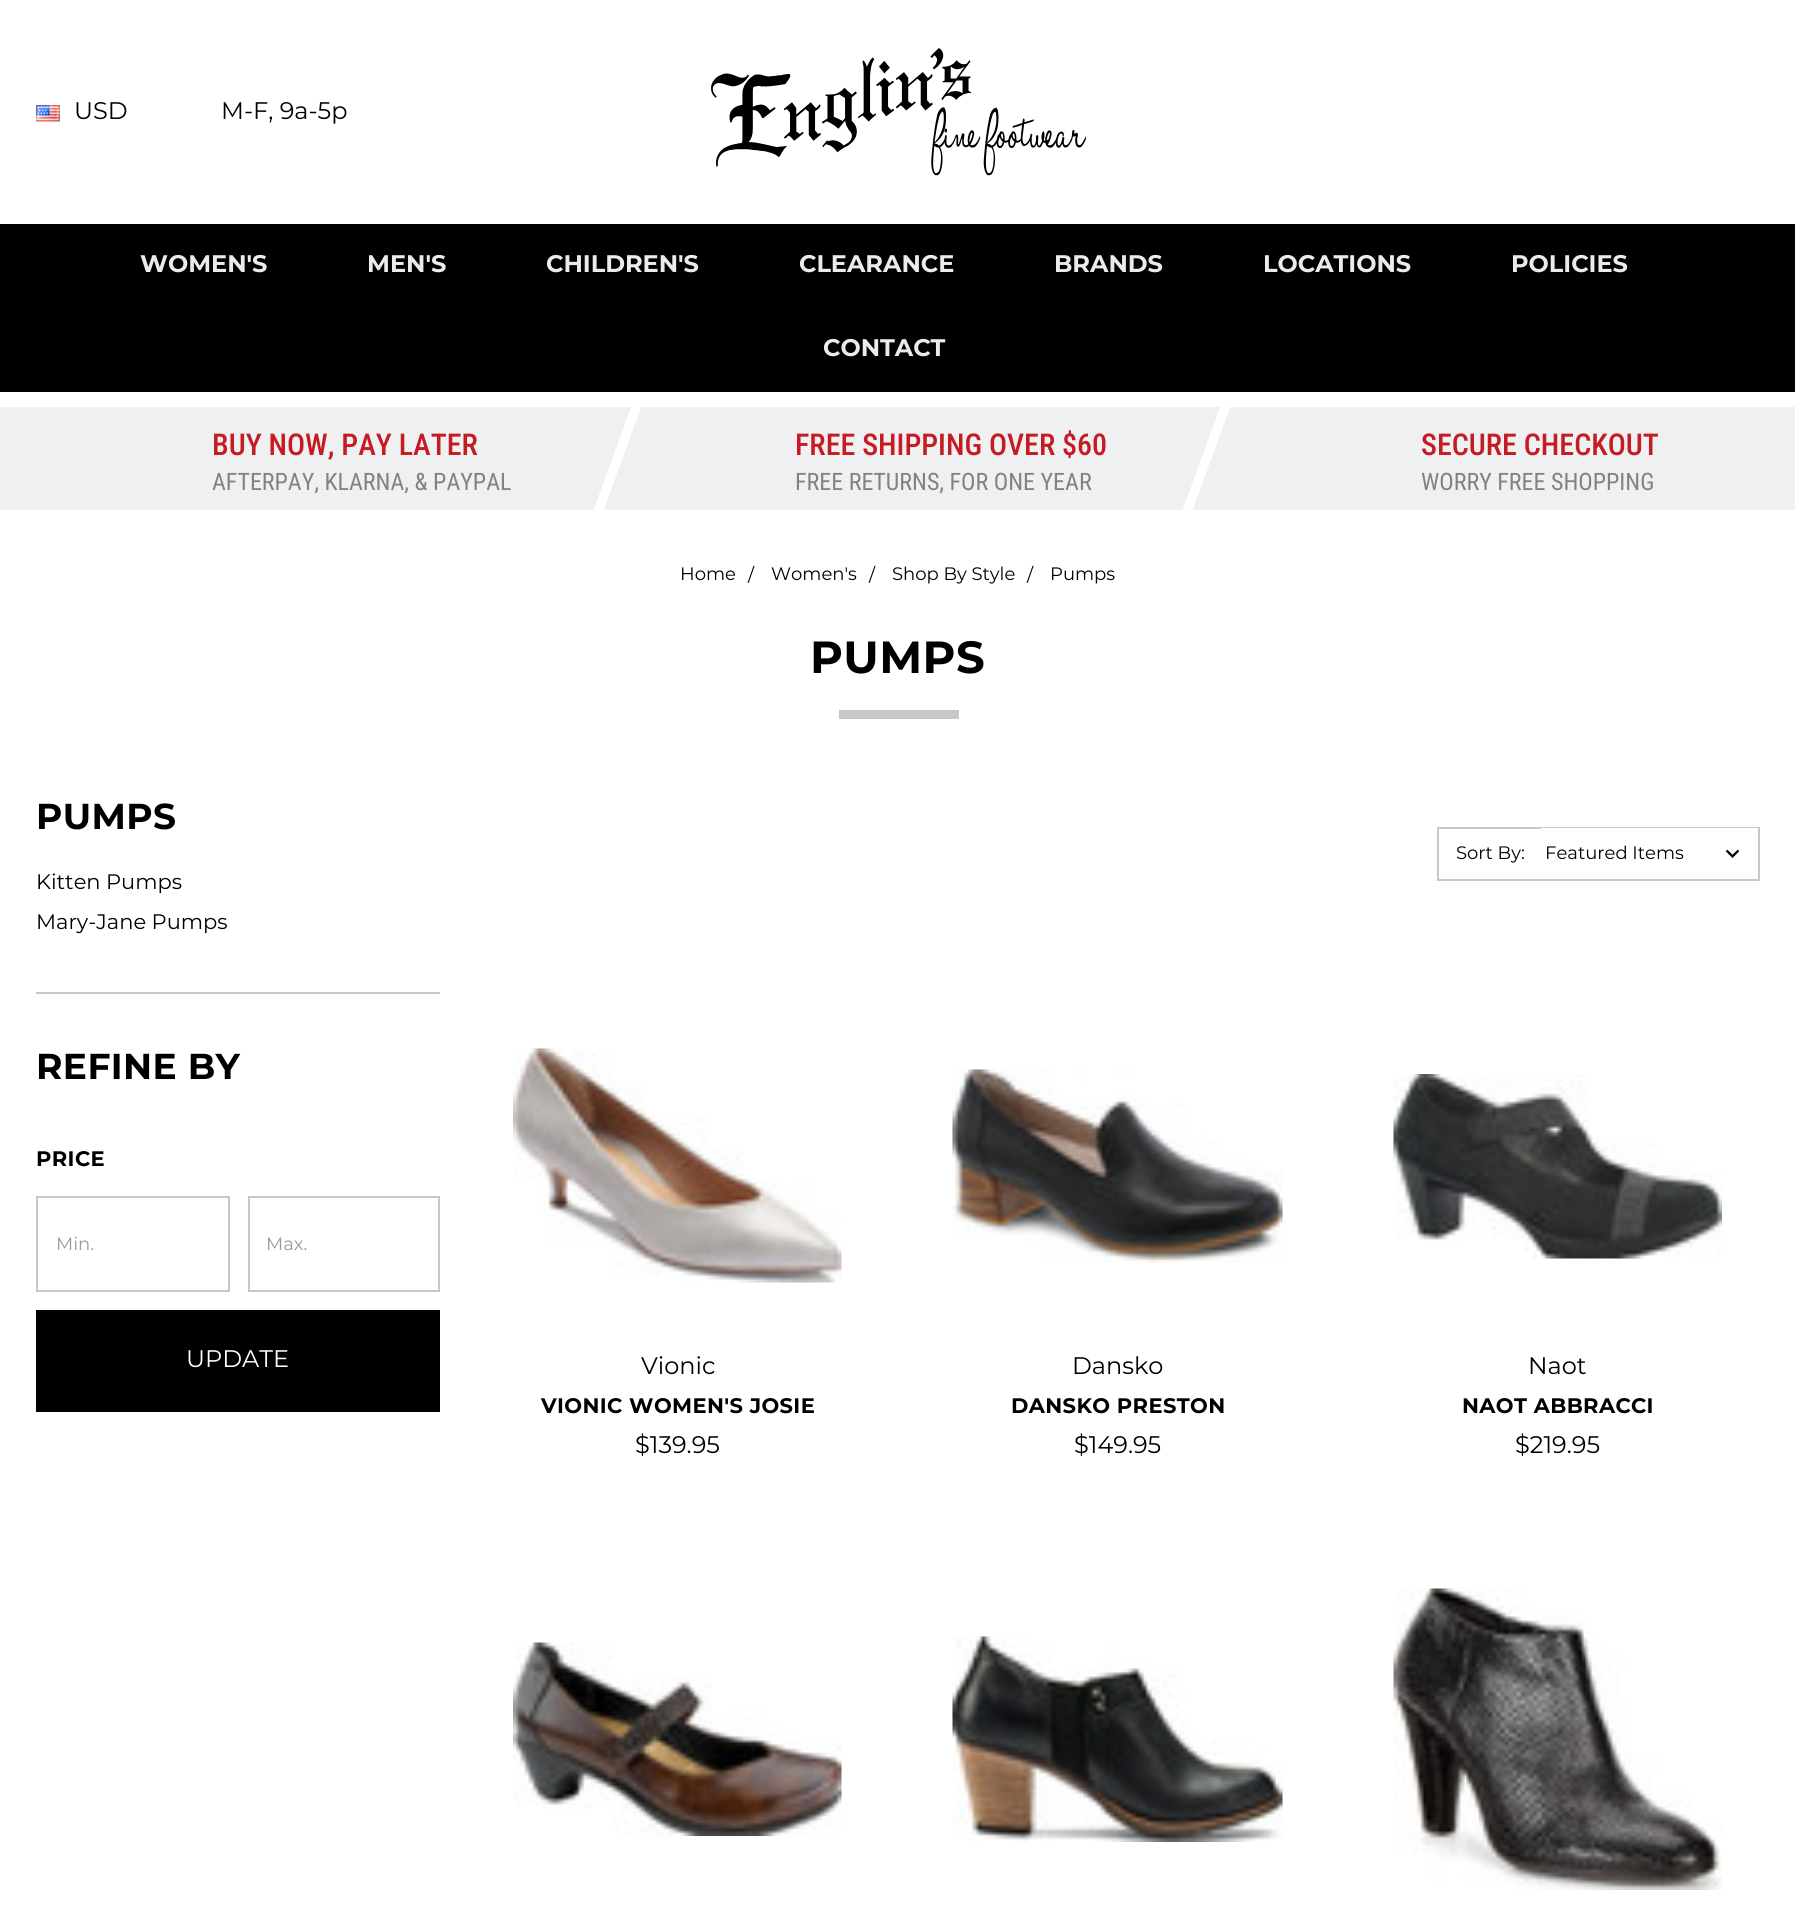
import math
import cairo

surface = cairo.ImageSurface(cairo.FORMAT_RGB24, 1795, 1910)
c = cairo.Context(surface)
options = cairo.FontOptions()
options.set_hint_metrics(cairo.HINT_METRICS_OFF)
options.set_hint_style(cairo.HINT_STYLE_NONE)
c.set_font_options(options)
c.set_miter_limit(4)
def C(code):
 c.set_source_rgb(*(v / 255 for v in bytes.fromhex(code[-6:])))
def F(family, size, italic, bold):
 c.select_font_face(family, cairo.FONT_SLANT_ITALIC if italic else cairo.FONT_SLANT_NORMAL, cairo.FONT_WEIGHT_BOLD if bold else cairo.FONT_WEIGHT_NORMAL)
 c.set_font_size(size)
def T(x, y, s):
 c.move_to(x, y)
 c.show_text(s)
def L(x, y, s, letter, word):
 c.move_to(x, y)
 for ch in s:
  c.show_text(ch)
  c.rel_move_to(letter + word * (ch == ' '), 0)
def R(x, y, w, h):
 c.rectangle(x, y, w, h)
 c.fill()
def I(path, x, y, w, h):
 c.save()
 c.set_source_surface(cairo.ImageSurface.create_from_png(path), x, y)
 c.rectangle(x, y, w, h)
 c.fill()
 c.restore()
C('ffffff')
c.paint()
I('1.png',36,105,24,17)
F('Montserrat',24,0,0)
C('000000')
T(74,119,'USD')
T(221,119,'M-F, 9a-5p')
I('2.png',711,48,375,128)
R(0,224,1795,168)
F('Montserrat',24,0,1)
C('ebebeb')
T(140,272,'WOMEN\'S')
T(367,272,'MEN\'S')
T(546,272,'CHILDREN\'S')
T(799,272,'CLEARANCE')
T(1054,272,'BRANDS')
T(1263,272,'LOCATIONS')
T(1511,272,'POLICIES')
T(823,356,'CONTACT')
C('eff0f2')
R(0,407,1795,103)
F('Roboto Condensed Medium',30,0,0)
C('c41c22')
T(212,455,'BUY NOW, PAY LATER')
F('Roboto Condensed',24,0,0)
C('818284')
T(212,490,'AFTERPAY, KLARNA, & PAYPAL')
c.save()
c.rectangle(0,407,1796,103)
c.clip()
C('ffffff')
c.new_path()
c.move_to(697,226)
c.line_to(706,229)
c.line_to(552,652)
c.line_to(543,649)
c.close_path()
c.fill()
c.restore()
F('Roboto Condensed Medium',30,0,0)
C('c41c22')
T(795,455,'FREE SHIPPING OVER $60')
F('Roboto Condensed',24,0,0)
C('818284')
T(795,490,'FREE RETURNS, FOR ONE YEAR')
c.save()
c.rectangle(0,407,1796,103)
c.clip()
C('ffffff')
c.new_path()
c.move_to(1286,226)
c.line_to(1295,229)
c.line_to(1141,652)
c.line_to(1132,649)
c.close_path()
c.fill()
c.restore()
F('Roboto Condensed Medium',30,0,0)
C('c41c22')
T(1421,455,'SECURE CHECKOUT')
F('Roboto Condensed',24,0,0)
C('818284')
T(1421,490,'WORRY FREE SHOPPING')
F('Montserrat',18,0,0)
C('000000')
T(680,580,'Home')
T(748,581,'/')
T(771,580,'Women\'s')
T(869,581,'/')
T(892,580,'Shop By Style')
T(1027,581,'/')
T(1050,580,'Pumps')
F('Montserrat',45,0,1)
L(810,673,'PUMPS',.4,0)
C('c8c8c8')
R(839,710,120,9)
F('Montserrat',36,0,1)
C('000000')
L(36,829,'PUMPS',.4,0)
F('Montserrat',21,0,0)
T(36,889,'Kitten Pumps')
T(36,929,'Mary-Jane Pumps')
C('c8c8c8')
R(36,992,404,2)
F('Montserrat',36,0,1)
C('000000')
L(36,1079,'REFINE BY',.4,0)
F('Montserrat',21,0,1)
L(36,1166,'PRICE',.4,0)
c.rectangle(37,1197,192,94)
C('c8c8c8')
c.stroke()
F('Montserrat',18,0,0)
C('999999')
T(56,1250,'Min.')
c.rectangle(249,1197,190,94)
C('c8c8c8')
c.stroke()
C('999999')
T(266,1250,'Max.')
C('000000')
R(36,1310,404,102)
F('Montserrat',24,0,0)
C('ffffff')
T(186,1367,'UPDATE')
c.rectangle(1438,828,321,52)
C('c8c8c8')
c.stroke()
F('Montserrat',18,0,0)
C('000000')
T(1456,859,'Sort By:')
C('ffffff')
R(1541,828,217,1)
I('3.png',1725,849,15,9)
C('000000')
T(1545,859,'Featured Items')
I('4.png',513,1048,329,235)
F('Montserrat',24,0,0)
T(641,1374,'Vionic')
F('Montserrat',21,0,1)
L(541,1413,'VIONIC WOMEN\'S JOSIE',.4,0)
F('Montserrat',24,0,0)
T(635,1453,'$139.95')
I('5.png',952,1069,331,194)
T(1072,1374,'Dansko')
F('Montserrat',21,0,1)
L(1011,1413,'DANSKO PRESTON',.4,0)
F('Montserrat',24,0,0)
T(1074,1453,'$149.95')
I('6.png',1393,1074,329,185)
T(1528,1374,'Naot')
F('Montserrat',21,0,1)
L(1462,1413,'NAOT ABBRACCI',.4,0)
F('Montserrat',24,0,0)
T(1515,1453,'$219.95')
I('7.png',513,1642,329,194)
I('8.png',952,1636,331,206)
I('9.png',1393,1588,329,302)
surface.write_to_png('o.png')
